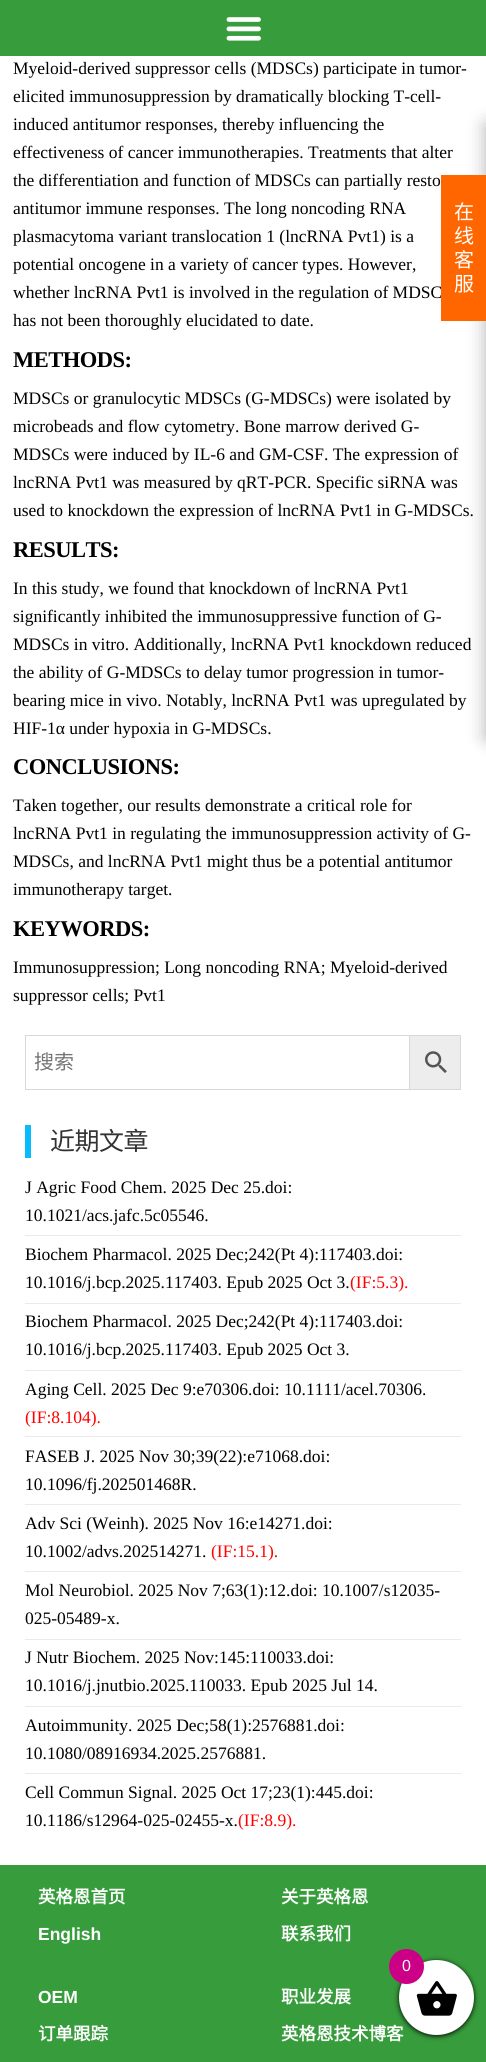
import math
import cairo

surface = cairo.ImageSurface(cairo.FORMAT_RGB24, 486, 2062)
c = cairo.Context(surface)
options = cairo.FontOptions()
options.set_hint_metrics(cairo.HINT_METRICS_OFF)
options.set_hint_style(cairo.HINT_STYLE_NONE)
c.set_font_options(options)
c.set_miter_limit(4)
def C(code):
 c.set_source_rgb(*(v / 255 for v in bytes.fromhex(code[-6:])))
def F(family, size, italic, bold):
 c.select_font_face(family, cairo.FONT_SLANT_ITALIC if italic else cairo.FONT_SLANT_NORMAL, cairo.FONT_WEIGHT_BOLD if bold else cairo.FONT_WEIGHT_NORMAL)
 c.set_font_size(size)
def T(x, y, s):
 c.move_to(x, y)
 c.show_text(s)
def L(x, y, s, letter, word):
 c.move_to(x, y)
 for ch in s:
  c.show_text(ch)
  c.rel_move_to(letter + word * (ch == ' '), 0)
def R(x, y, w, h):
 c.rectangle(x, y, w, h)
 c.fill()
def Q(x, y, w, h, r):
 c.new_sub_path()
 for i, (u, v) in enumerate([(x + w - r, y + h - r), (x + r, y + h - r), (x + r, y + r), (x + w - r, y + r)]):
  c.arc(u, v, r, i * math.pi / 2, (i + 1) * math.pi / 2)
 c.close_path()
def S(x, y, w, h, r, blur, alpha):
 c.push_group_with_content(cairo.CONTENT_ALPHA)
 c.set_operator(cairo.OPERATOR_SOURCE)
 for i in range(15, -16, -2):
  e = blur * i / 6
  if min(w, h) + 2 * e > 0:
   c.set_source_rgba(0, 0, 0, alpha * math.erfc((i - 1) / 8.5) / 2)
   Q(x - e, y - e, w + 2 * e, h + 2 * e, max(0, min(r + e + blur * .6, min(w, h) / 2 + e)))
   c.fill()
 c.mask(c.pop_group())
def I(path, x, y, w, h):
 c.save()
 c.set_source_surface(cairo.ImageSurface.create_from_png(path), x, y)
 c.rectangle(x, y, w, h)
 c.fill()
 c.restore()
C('ffffff')
c.paint()
C('379c3c')
R(0,0,486,56)
I('1.png',226,17,35,24)
F('Liberation Serif',17.5,0,0)
C('000000')
T(13,74,'Myeloid-derived suppressor cells (MDSCs) participate in tumor-')
T(13,102,'elicited immunosuppression by dramatically blocking T-cell-')
T(13,130,'induced antitumor responses, thereby influencing the')
T(13,158,'effectiveness of cancer immunotherapies. Treatments that alter')
T(13,186,'the differentiation and function of MDSCs can partially resto')
T(13,214,'antitumor immune responses. The long noncoding RNA')
T(13,242,'plasmacytoma variant translocation 1 (lncRNA Pvt1) is a')
T(13,270,'potential oncogene in a variety of cancer types. However,')
T(13,298,'whether lncRNA Pvt1 is involved in the regulation of MDSC')
T(13,326,'has not been thoroughly elucidated to date.')
F('Liberation Serif',22.5,0,1)
L(13,367,'METHODS:',-.5,0)
F('Liberation Serif',17.5,0,0)
T(13,404,'MDSCs or granulocytic MDSCs (G-MDSCs) were isolated by')
T(13,432,'microbeads and flow cytometry. Bone marrow derived G-')
T(13,460,'MDSCs were induced by IL-6 and GM-CSF. The expression of')
T(13,488,'lncRNA Pvt1 was measured by qRT-PCR. Specific siRNA was')
T(13,516,'used to knockdown the expression of lncRNA Pvt1 in G-MDSCs.')
F('Liberation Serif',22.5,0,1)
L(13,557,'RESULTS:',-.5,0)
F('Liberation Serif',17.5,0,0)
T(13,594,'In this study, we found that knockdown of lncRNA Pvt1')
T(13,622,'significantly inhibited the immunosuppressive function of G-')
T(13,650,'MDSCs in vitro. Additionally, lncRNA Pvt1 knockdown reduced')
T(13,678,'the ability of G-MDSCs to delay tumor progression in tumor-')
T(13,706,'bearing mice in vivo. Notably, lncRNA Pvt1 was upregulated by')
T(13,734,'HIF-1α under hypoxia in G-MDSCs.')
F('Liberation Serif',22.5,0,1)
L(13,774,'CONCLUSIONS:',-.5,0)
F('Liberation Serif',17.5,0,0)
T(13,811,'Taken together, our results demonstrate a critical role for')
T(13,839,'lncRNA Pvt1 in regulating the immunosuppression activity of G-')
T(13,867,'MDSCs, and lncRNA Pvt1 might thus be a potential antitumor')
T(13,895,'immunotherapy target.')
F('Liberation Serif',22.5,0,1)
L(13,936,'KEYWORDS:',-.5,0)
F('Liberation Serif',17.5,0,0)
T(13,973,'Immunosuppression; Long noncoding RNA; Myeloid-derived')
T(13,1001,'suppressor cells; Pvt1')
C('ededed')
c.rectangle(409.5,1035.5,51,54)
c.fill_preserve()
C('d8d8d8')
c.set_line_width(1)
c.stroke()
c.rectangle(25.5,1035.5,384,54)
c.stroke()
F('Noto Sans CJK SC',20,0,0)
C('757575')
T(34,1069,'搜索')
I('2.png',425,1051,22,22)
C('07bcfd')
R(25,1125,6,33)
F('Noto Sans CJK SC',25,0,0)
C('333333')
L(50,1150,'近期文章',-.5,0)
C('ebebeb')
R(25,1235,436,1)
F('Liberation Serif',17.5,0,0)
C('000000')
T(25,1193,'J Agric Food Chem. 2025 Dec 25.doi:')
T(25,1221,'10.1021/acs.jafc.5c05546.')
C('ebebeb')
R(25,1303,436,1)
C('000000')
T(25,1260,'Biochem Pharmacol. 2025 Dec;242(Pt 4):117403.doi:')
T(25,1288,'10.1016/j.bcp.2025.117403. Epub 2025 Oct 3.')
C('ff0000')
T(350,1288,'(IF:5.3).')
C('ebebeb')
R(25,1370,436,1)
C('000000')
T(25,1327,'Biochem Pharmacol. 2025 Dec;242(Pt 4):117403.doi:')
T(25,1355,'10.1016/j.bcp.2025.117403. Epub 2025 Oct 3.')
C('ebebeb')
R(25,1436,436,1)
C('000000')
T(25,1395,'Aging Cell. 2025 Dec 9:e70306.doi: 10.1111/acel.70306.')
C('ff0000')
T(25,1423,'(IF:8.104).')
C('ebebeb')
R(25,1504,436,1)
C('000000')
T(25,1462,'FASEB J. 2025 Nov 30;39(22):e71068.doi:')
T(25,1490,'10.1096/fj.202501468R.')
C('ebebeb')
R(25,1571,436,1)
C('000000')
T(25,1529,'Adv Sci (Weinh). 2025 Nov 16:e14271.doi:')
T(25,1557,'10.1002/advs.202514271.')
C('ff0000')
T(211,1557,'(IF:15.1).')
C('ebebeb')
R(25,1639,436,1)
C('000000')
T(25,1596,'Mol Neurobiol. 2025 Nov 7;63(1):12.doi: 10.1007/s12035-')
T(25,1624,'025-05489-x.')
C('ebebeb')
R(25,1706,436,1)
C('000000')
T(25,1663,'J Nutr Biochem. 2025 Nov:145:110033.doi:')
T(25,1691,'10.1016/j.jnutbio.2025.110033. Epub 2025 Jul 14.')
C('ebebeb')
R(25,1773,436,1)
C('000000')
T(25,1731,'Autoimmunity. 2025 Dec;58(1):2576881.doi:')
T(25,1759,'10.1080/08916934.2025.2576881.')
T(25,1798,'Cell Commun Signal. 2025 Oct 17;23(1):445.doi:')
T(25,1826,'10.1186/s12964-025-02455-x.')
C('ff0000')
T(238,1826,'(IF:8.9).')
C('000000')
S(486,125,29,613,0,9.5,.3)
C('ff6600')
R(441,175,45,146)
F('Noto Sans CJK SC',20,0,0)
C('ffffff')
T(454,219,'在')
T(454,243,'线')
T(454,267,'客')
T(454,291,'服')
C('379c3c')
R(0,1865,486,197)
F('Noto Sans CJK SC',17.5,0,1)
C('ffffff')
T(38,1903,'英格恩首页')
F('Liberation Sans',17.5,0,1)
T(38,1940,'English')
F('Noto Sans CJK SC',17.5,0,1)
T(281,1903,'关于英格恩')
T(281,1940,'联系我们')
F('Liberation Sans',17.5,0,1)
T(38,2003,'OEM')
F('Noto Sans CJK SC',17.5,0,1)
T(38,2040,'订单跟踪')
T(281,2003,'职业发展')
T(281,2040,'英格恩技术博客')
C('000000')
S(399,1961,75,75,37.5,2.5,1)
C('ffffff')
c.arc(436.5,1997.5,37.5,0,2 * math.pi)
c.fill()
I('3.png',416,1981,41,35)
C('cc0086')
c.arc(406.5,1966.5,17.5,0,2 * math.pi)
c.fill()
F('Liberation Sans',16,0,0)
C('ffffff')
T(402,1971,'0')
surface.write_to_png('o.png')
